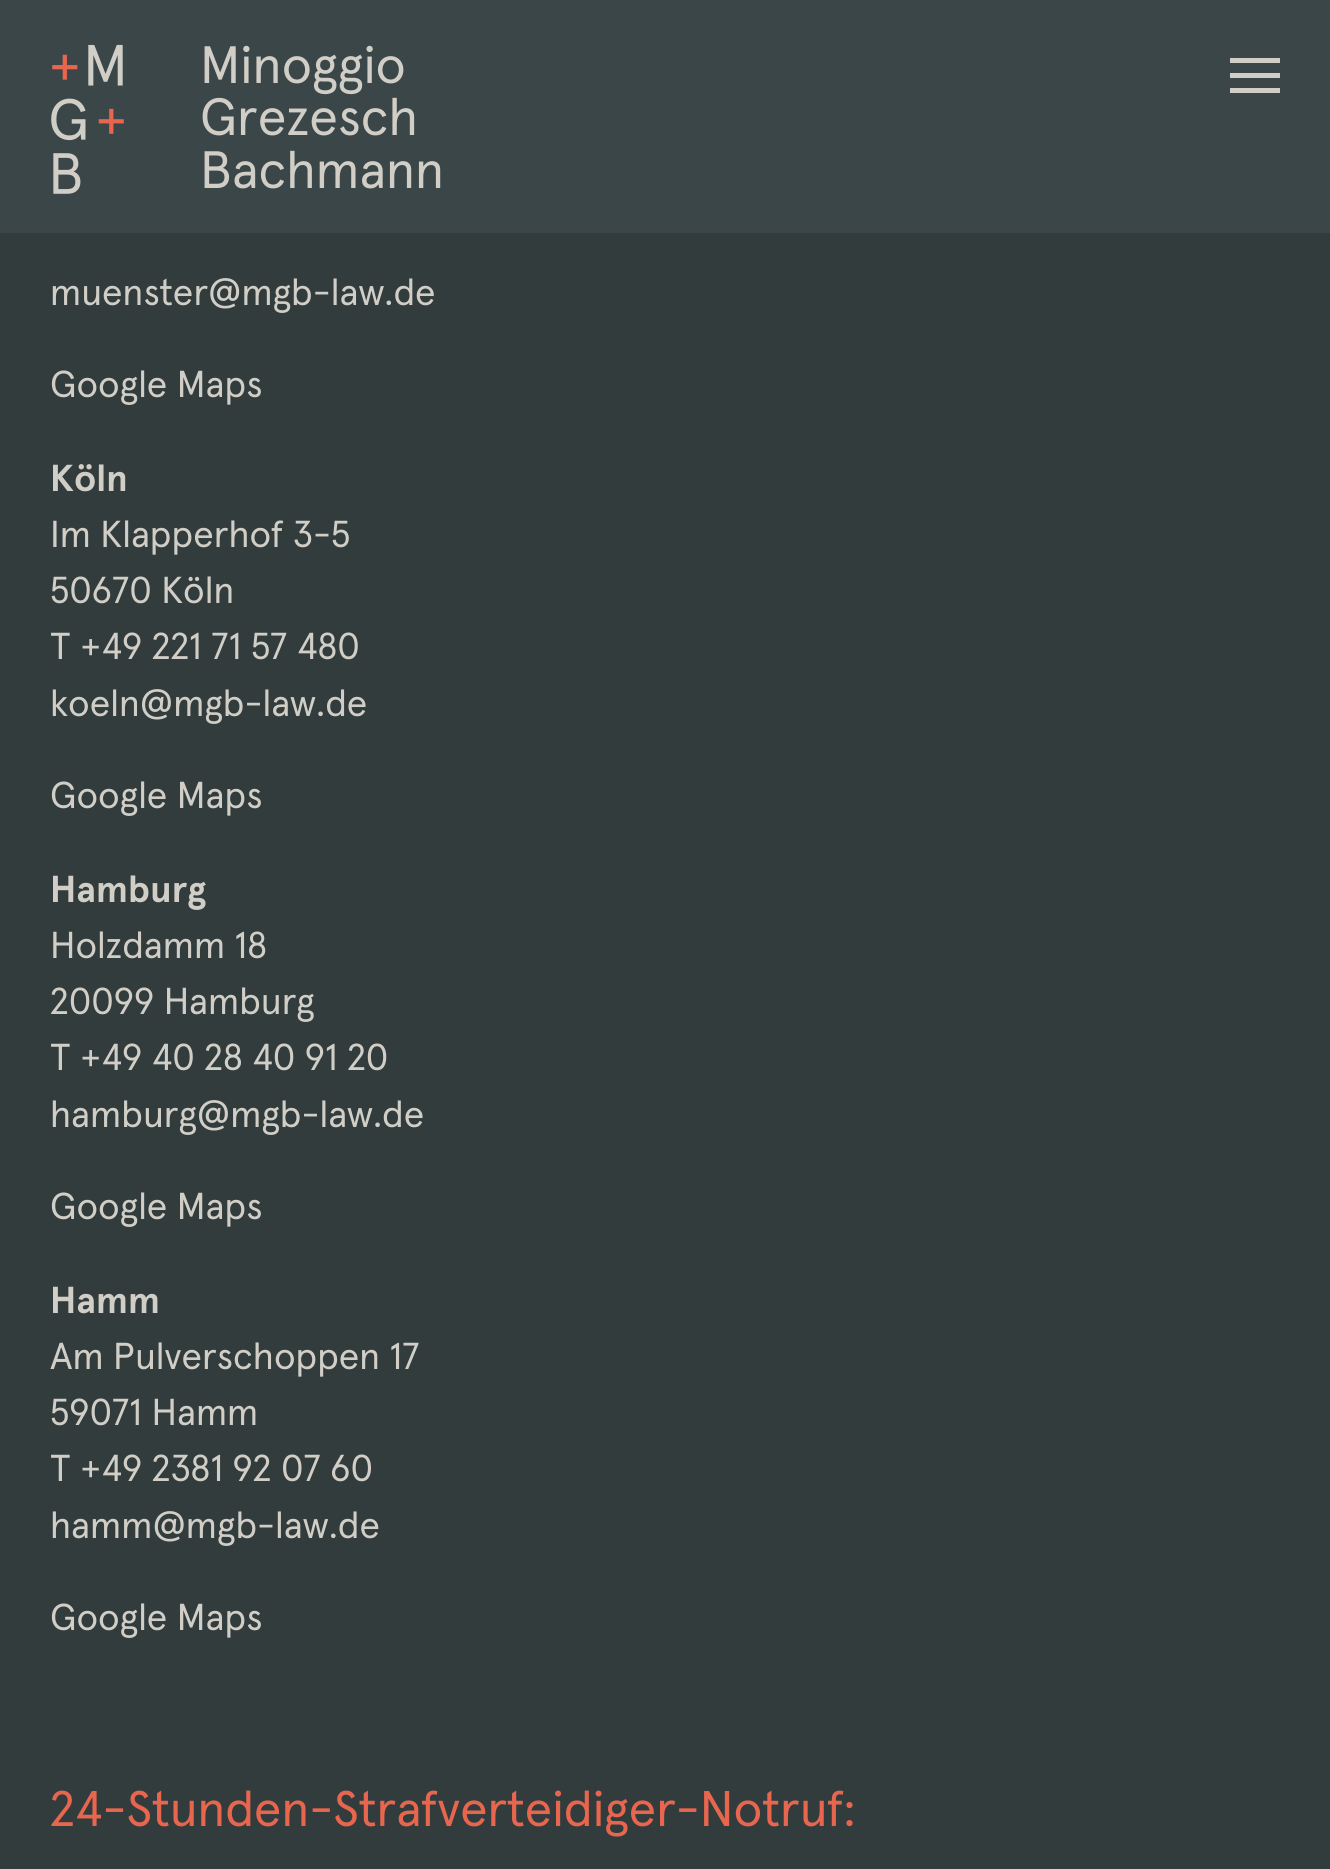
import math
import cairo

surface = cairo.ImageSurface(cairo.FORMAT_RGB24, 1330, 1869)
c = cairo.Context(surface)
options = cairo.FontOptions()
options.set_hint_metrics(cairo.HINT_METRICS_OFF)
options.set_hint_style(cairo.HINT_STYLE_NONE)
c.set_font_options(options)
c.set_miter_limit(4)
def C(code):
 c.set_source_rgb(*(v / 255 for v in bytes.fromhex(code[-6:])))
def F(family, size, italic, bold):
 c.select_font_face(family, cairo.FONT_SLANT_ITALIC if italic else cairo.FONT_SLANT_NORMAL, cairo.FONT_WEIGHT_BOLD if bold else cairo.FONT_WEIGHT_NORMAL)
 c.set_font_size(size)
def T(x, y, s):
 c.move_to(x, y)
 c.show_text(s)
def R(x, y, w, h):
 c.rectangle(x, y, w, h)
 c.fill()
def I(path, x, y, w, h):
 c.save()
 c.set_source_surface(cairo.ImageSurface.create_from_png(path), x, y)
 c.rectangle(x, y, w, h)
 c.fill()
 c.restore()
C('323c3d')
c.paint()
C('3b4648')
R(0,0,1330,233)
I('1.png',51,44,73,150)
F('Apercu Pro',52.5,0,0)
C('d0cec6')
T(200,83,'Minoggio')
T(200,135,'Grezesch')
T(200,188,'Bachmann')
R(1230,58,50,5)
R(1230,73,50,5)
R(1230,88,50,5)
F('Apercu Pro',37.5,0,0)
T(50,305,'muenster@mgb-law.de')
T(50,397,'Google Maps')
F('Apercu Pro',37.5,0,1)
T(50,491,'Köln')
F('Apercu Pro',37.5,0,0)
T(50,547,'Im Klapperhof 3-5')
T(50,603,'50670 Köln')
T(50,659,'T +49 221 71 57 480')
T(50,716,'koeln@mgb-law.de')
T(50,808,'Google Maps')
F('Apercu Pro',37.5,0,1)
T(50,902,'Hamburg')
F('Apercu Pro',37.5,0,0)
T(50,958,'Holzdamm 18')
T(50,1014,'20099 Hamburg')
T(50,1070,'T +49 40 28 40 91 20')
T(50,1127,'hamburg@mgb-law.de')
T(50,1219,'Google Maps')
F('Apercu Pro',37.5,0,1)
T(50,1313,'Hamm')
F('Apercu Pro',37.5,0,0)
T(50,1369,'Am Pulverschoppen 17')
T(50,1425,'59071 Hamm')
T(50,1481,'T +49 2381 92 07 60')
T(50,1538,'hamm@mgb-law.de')
T(50,1630,'Google Maps')
F('Apercu Pro',50,0,0)
C('e8664e')
T(50,1826,'24-Stunden-Strafverteidiger-Notruf:')
surface.write_to_png('o.png')
